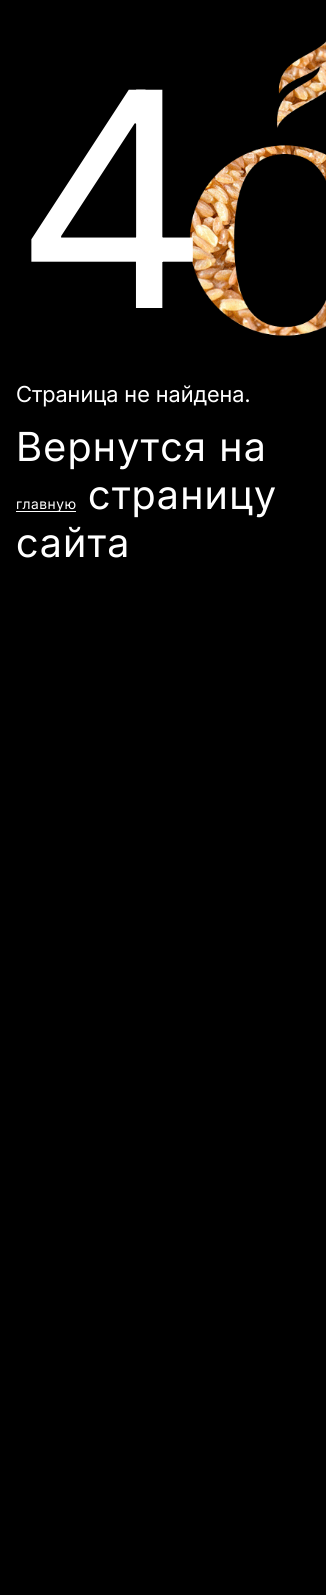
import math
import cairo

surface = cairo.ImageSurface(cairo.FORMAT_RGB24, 326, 1595)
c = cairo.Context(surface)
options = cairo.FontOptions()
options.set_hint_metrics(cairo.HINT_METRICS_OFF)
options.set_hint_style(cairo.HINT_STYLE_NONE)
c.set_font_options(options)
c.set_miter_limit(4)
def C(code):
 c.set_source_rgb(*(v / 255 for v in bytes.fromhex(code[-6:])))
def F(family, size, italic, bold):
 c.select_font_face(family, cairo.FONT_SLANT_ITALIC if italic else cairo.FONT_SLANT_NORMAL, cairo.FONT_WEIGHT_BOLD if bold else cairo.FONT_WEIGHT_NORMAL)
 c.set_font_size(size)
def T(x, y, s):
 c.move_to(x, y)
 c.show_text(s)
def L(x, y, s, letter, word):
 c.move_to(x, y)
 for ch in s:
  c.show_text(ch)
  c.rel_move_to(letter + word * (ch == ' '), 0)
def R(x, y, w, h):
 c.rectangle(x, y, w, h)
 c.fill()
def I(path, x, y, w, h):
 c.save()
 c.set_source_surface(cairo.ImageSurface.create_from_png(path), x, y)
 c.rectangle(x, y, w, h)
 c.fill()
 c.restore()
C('000000')
c.paint()
I('1.png',189,41,137,295)
F('Inter',300,0,0)
C('ffffff')
T(16,308,'4')
F('Inter',22,0,0)
T(16,402,'Страница не найдена.')
F('Inter',40,0,0)
L(16,461,'Вернутся на',1.25,0)
R(16,511,60,1)
F('Inter',14,0,0)
L(16,509,'главную',.5,0)
F('Inter',40,0,0)
L(88,509,'страницу',1.25,0)
L(16,557,'сайта',1.25,0)
surface.write_to_png('o.png')
